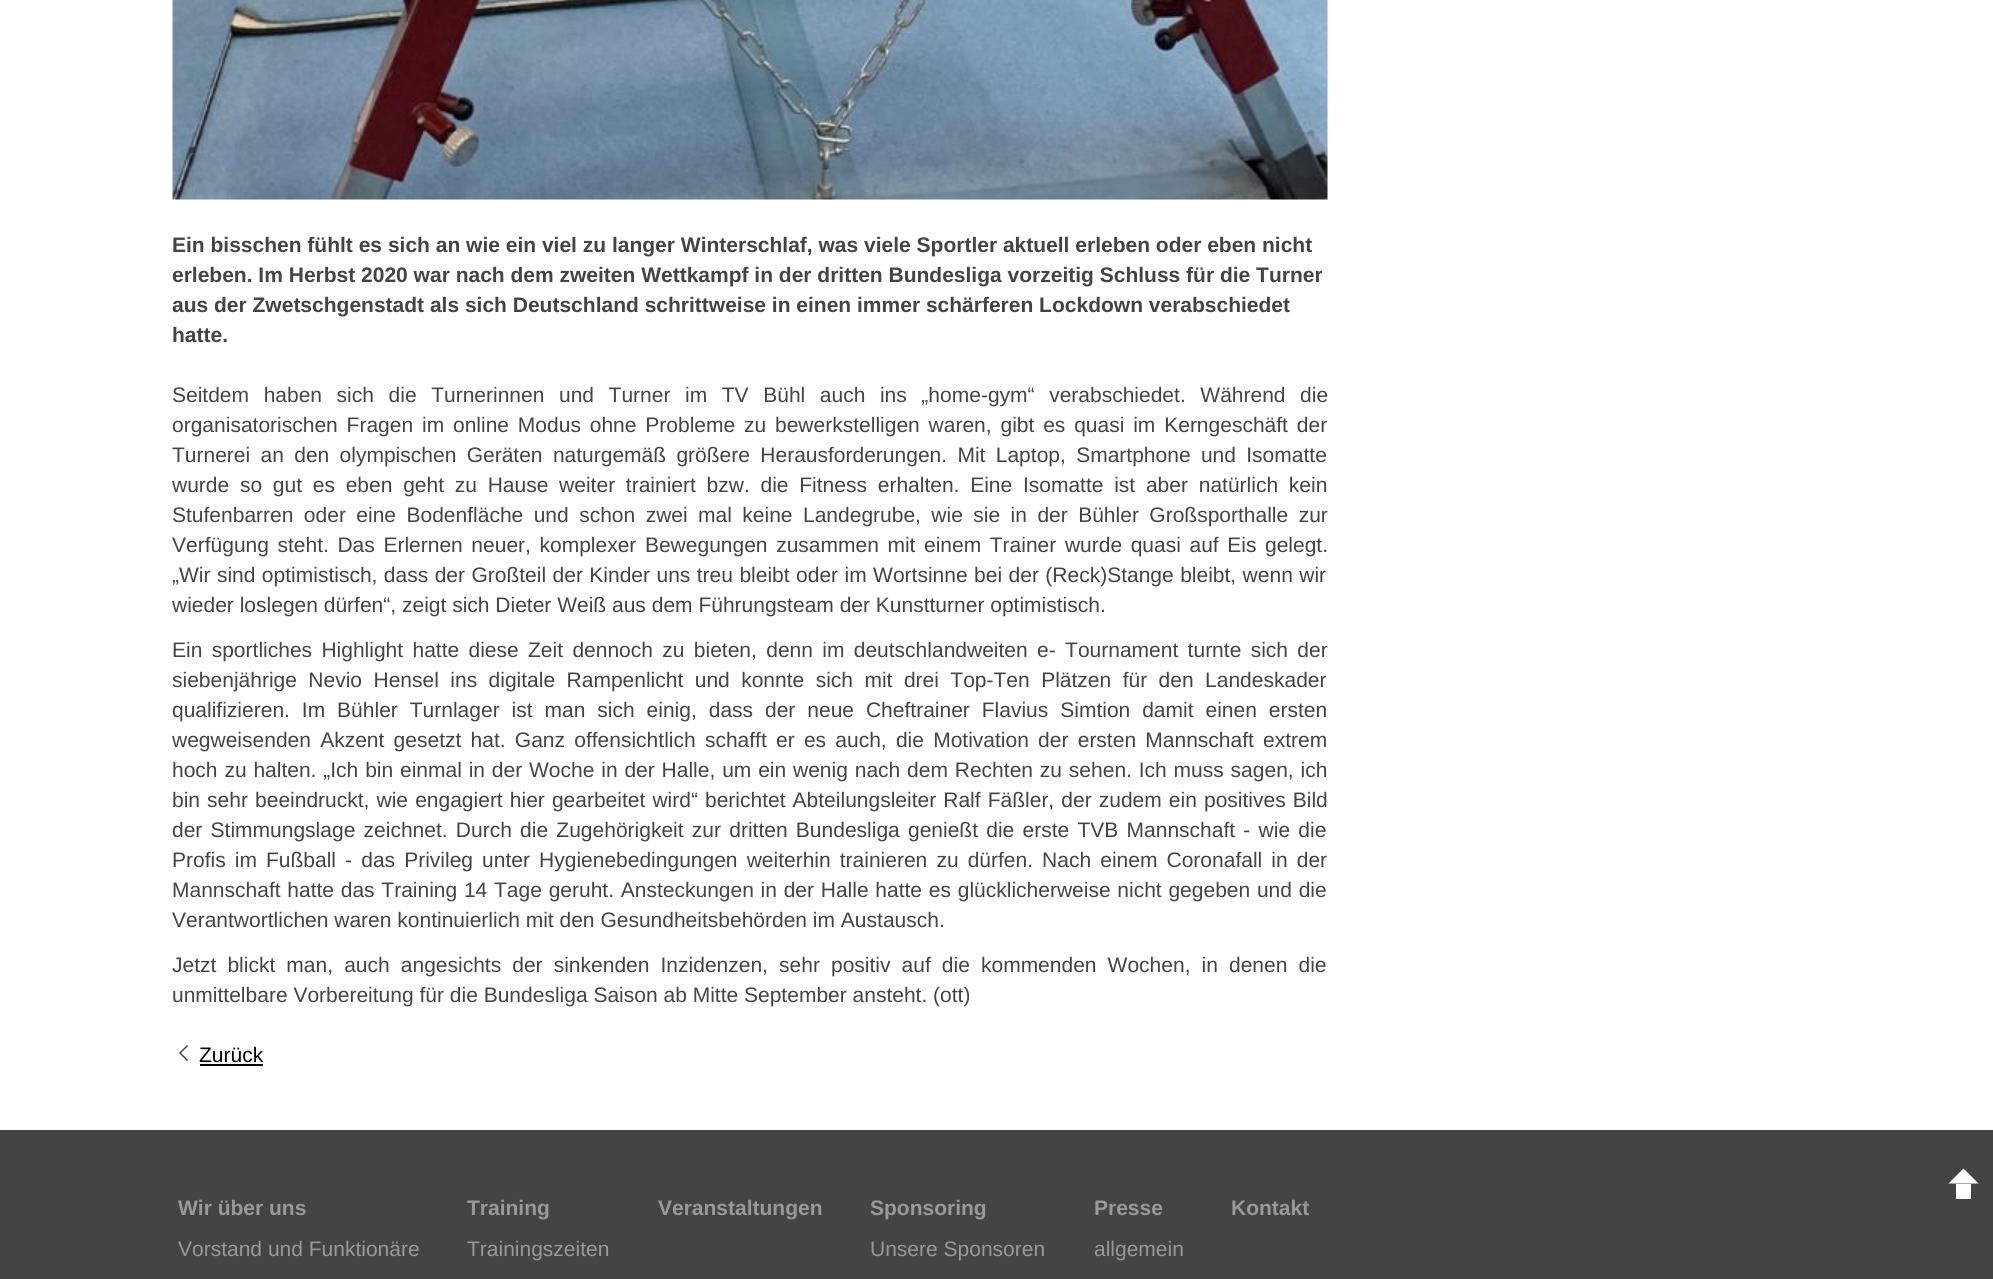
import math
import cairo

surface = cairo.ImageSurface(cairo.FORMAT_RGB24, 1993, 1279)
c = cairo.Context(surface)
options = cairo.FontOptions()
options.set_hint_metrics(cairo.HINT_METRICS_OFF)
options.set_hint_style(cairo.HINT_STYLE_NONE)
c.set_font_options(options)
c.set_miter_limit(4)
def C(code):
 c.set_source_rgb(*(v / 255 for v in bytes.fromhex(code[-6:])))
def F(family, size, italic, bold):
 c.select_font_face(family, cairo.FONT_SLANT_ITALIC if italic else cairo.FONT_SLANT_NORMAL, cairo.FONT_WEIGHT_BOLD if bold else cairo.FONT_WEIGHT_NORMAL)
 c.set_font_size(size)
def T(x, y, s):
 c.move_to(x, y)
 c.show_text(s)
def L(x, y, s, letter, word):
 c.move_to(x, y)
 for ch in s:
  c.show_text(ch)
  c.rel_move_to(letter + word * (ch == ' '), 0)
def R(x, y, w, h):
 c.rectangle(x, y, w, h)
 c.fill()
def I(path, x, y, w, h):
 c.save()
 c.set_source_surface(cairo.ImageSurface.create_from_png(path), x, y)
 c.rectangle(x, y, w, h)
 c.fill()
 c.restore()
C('444444')
c.paint()
C('ffffff')
R(0,0,1993,1130)
I('1.png',172,0,1156,200)
F('Liberation Sans',21,0,1)
C('444444')
T(172,252,'Ein bisschen fühlt es sich an wie ein viel zu langer Winterschlaf, was viele Sportler aktuell erleben oder eben nicht')
T(172,282,'erleben. Im Herbst 2020 war nach dem zweiten Wettkampf in der dritten Bundesliga vorzeitig Schluss für die Turner')
T(172,312,'aus der Zwetschgenstadt als sich Deutschland schrittweise in einen immer schärferen Lockdown verabschiedet')
T(172,342,'hatte.')
F('Liberation Sans',21,0,0)
L(172,402,'Seitdem haben sich die Turnerinnen und Turner im TV Bühl auch ins „home-gym“ verabschiedet. Während die',0,8.75)
L(172,432,'organisatorischen Fragen im online Modus ohne Probleme zu bewerkstelligen waren, gibt es quasi im Kerngeschäft der',0,3)
L(172,462,'Turnerei an den olympischen Geräten naturgemäß größere Herausforderungen. Mit Laptop, Smartphone und Isomatte',0,4.5)
L(172,492,'wurde so gut es eben geht zu Hause weiter trainiert bzw. die Fitness erhalten. Eine Isomatte ist aber natürlich kein',0,4.9)
L(172,522,'Stufenbarren oder eine Bodenfläche und schon zwei mal keine Landegrube, wie sie in der Bühler Großsporthalle zur',0,4.6)
L(172,552,'Verfügung steht. Das Erlernen neuer, komplexer Bewegungen zusammen mit einem Trainer wurde quasi auf Eis gelegt.',0,2.75)
L(172,582,'„Wir sind optimistisch, dass der Großteil der Kinder uns treu bleibt oder im Wortsinne bei der (Reck)Stange bleibt, wenn wir',0,.6)
T(172,612,'wieder loslegen dürfen“, zeigt sich Dieter Weiß aus dem Führungsteam der Kunstturner optimistisch.')
L(172,657,'Ein sportliches Highlight hatte diese Zeit dennoch zu bieten, denn im deutschlandweiten e- Tournament turnte sich der',0,3.5)
L(172,687,'siebenjährige Nevio Hensel ins digitale Rampenlicht und konnte sich mit drei Top-Ten Plätzen für den Landeskader',0,5.6)
L(172,717,'qualifizieren. Im Bühler Turnlager ist man sich einig, dass der neue Cheftrainer Flavius Simtion damit einen ersten',0,6.1)
L(172,747,'wegweisenden Akzent gesetzt hat. Ganz offensichtlich schafft er es auch, die Motivation der ersten Mannschaft extrem',0,3.4)
L(172,777,'hoch zu halten. „Ich bin einmal in der Woche in der Halle, um ein wenig nach dem Rechten zu sehen. Ich muss sagen, ich',0,1)
L(172,807,'bin sehr beeindruckt, wie engagiert hier gearbeitet wird“ berichtet Abteilungsleiter Ralf Fäßler, der zudem ein positives Bild',0,1.25)
L(172,837,'der Stimmungslage zeichnet. Durch die Zugehörigkeit zur dritten Bundesliga genießt die erste TVB Mannschaft - wie die',0,2.4)
L(172,867,'Profis im Fußball - das Privileg unter Hygienebedingungen weiterhin trainieren zu dürfen. Nach einem Coronafall in der',0,3.25)
L(172,897,'Mannschaft hatte das Training 14 Tage geruht. Ansteckungen in der Halle hatte es glücklicherweise nicht gegeben und die',0,.9)
T(172,927,'Verantwortlichen waren kontinuierlich mit den Gesundheitsbehörden im Austausch.')
L(172,972,'Jetzt blickt man, auch angesichts der sinkenden Inzidenzen, sehr positiv auf die kommenden Wochen, in denen die',0,5.25)
T(172,1002,'unmittelbare Vorbereitung für die Bundesliga Saison ab Mitte September ansteht. (ott)')
c.new_path()
c.move_to(187.5,1045.5)
c.line_to(180,1053)
c.line_to(187.5,1060.5)
c.set_line_width(1.5)
c.stroke()
C('000000')
T(199,1062,'Zurück')
R(200,1064,63,2)
F('Liberation Sans',21,0,1)
C('999999')
T(178,1215,'Wir über uns')
F('Liberation Sans',21,0,0)
T(178,1256,'Vorstand und Funktionäre')
F('Liberation Sans',21,0,1)
T(467,1215,'Training')
F('Liberation Sans',21,0,0)
T(467,1256,'Trainingszeiten')
F('Liberation Sans',21,0,1)
T(658,1215,'Veranstaltungen')
T(870,1215,'Sponsoring')
F('Liberation Sans',21,0,0)
T(870,1256,'Unsere Sponsoren')
F('Liberation Sans',21,0,1)
T(1094,1215,'Presse')
F('Liberation Sans',21,0,0)
T(1094,1256,'allgemein')
F('Liberation Sans',21,0,1)
T(1231,1215,'Kontakt')
C('ffffff')
c.new_path()
c.move_to(1978.5,1183.5)
c.line_to(1948.5,1183.5)
c.line_to(1963.5,1168.5)
c.close_path()
c.fill()
R(1956,1184,15,15)
surface.write_to_png('o.png')
